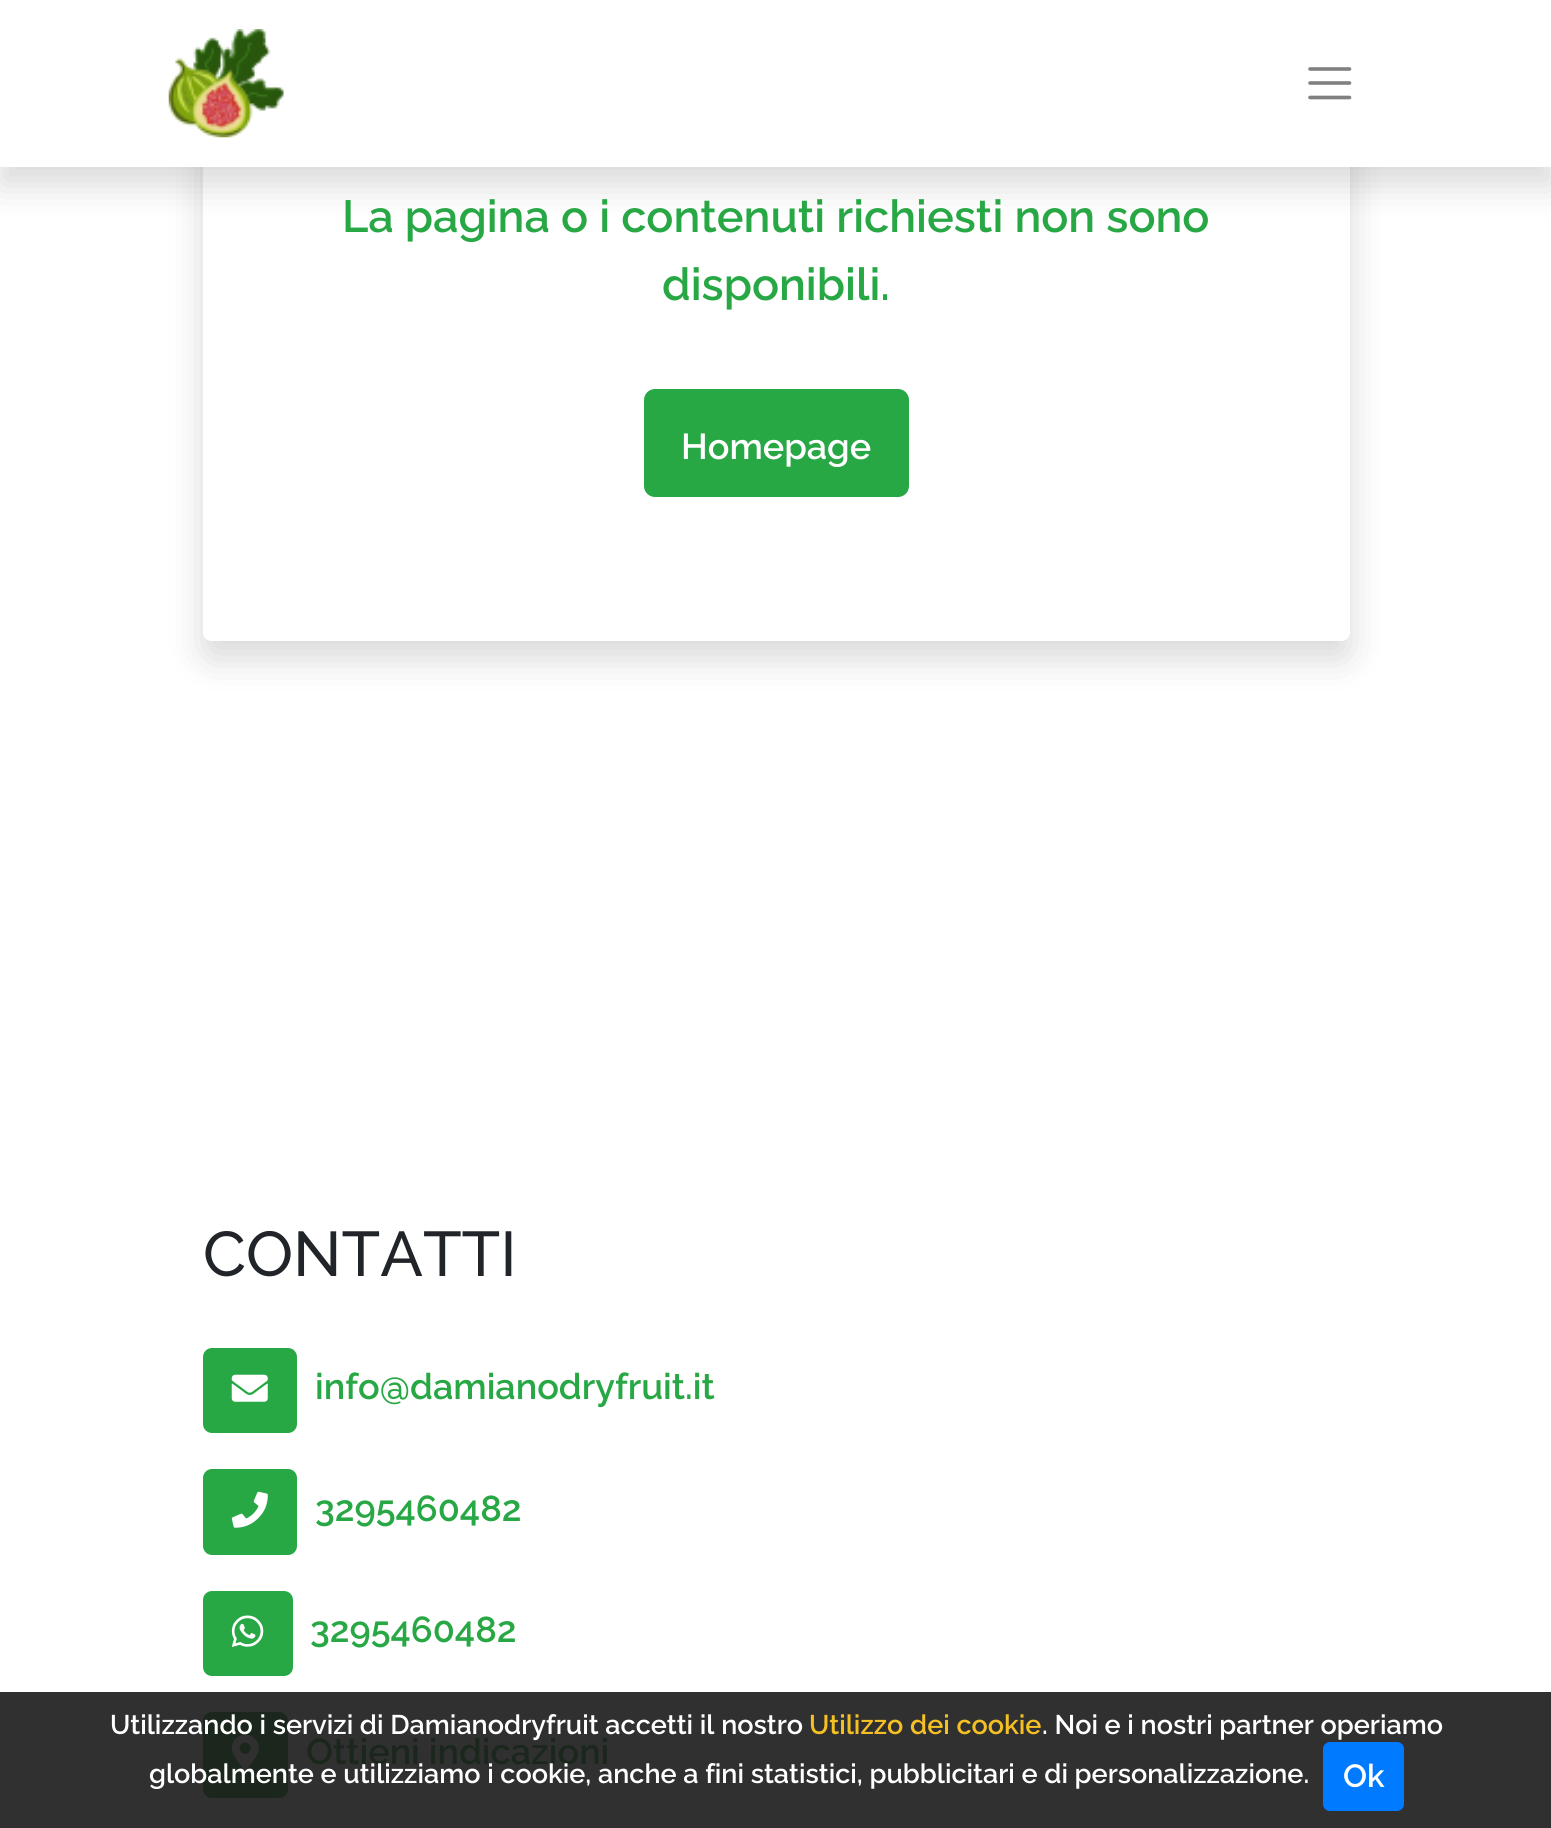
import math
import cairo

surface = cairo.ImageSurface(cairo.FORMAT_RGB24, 1551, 1828)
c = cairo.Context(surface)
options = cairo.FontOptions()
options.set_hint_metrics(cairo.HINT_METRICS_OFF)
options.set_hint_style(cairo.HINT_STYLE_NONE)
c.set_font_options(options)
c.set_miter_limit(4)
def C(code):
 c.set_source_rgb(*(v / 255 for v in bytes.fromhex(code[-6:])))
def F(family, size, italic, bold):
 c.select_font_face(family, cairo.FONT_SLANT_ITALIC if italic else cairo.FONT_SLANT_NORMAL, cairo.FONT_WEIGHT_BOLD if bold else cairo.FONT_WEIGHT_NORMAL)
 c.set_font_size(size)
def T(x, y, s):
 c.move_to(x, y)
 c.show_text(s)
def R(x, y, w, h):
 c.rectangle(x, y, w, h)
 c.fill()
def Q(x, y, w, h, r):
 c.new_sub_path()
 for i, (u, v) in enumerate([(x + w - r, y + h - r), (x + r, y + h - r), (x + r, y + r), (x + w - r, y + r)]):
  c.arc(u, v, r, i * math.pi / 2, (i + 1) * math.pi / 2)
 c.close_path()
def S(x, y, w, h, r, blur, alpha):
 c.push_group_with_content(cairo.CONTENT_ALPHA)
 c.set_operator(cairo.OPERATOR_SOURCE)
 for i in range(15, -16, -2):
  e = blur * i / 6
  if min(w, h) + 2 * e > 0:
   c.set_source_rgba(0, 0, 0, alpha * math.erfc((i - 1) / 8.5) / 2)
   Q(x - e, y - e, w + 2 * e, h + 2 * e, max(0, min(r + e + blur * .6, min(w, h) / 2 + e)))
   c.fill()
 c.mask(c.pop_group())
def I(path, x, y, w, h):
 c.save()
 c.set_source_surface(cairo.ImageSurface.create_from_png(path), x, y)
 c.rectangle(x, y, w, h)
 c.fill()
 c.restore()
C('ffffff')
c.paint()
C('303030')
R(0,1692,1551,136)
C('000000')
S(0,18,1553,167,0,18,.15)
c.save()
c.set_fill_rule(cairo.FILL_RULE_EVEN_ODD)
c.new_path()
c.move_to(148,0)
c.line_to(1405,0)
c.line_to(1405,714)
c.line_to(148,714)
c.close_path()
c.move_to(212,-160)
c.line_to(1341,-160)
c.curve_to(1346,-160,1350,-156,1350,-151)
c.line_to(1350,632)
c.curve_to(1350,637,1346,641,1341,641)
c.line_to(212,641)
c.curve_to(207,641,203,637,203,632)
c.line_to(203,-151)
c.curve_to(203,-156,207,-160,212,-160)
c.close_path()
c.clip()
S(203,-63,1147,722,9,18,.15)
c.restore()
C('ffffff')
R(0,0,1551,167)
I('1.png',168,29,116,109)
c.new_path()
c.move_to(1310,69)
c.line_to(1349.5,69)
c.move_to(1310,83)
c.line_to(1349.5,83)
c.move_to(1310,97.5)
c.line_to(1349.5,97.5)
C('808080')
c.set_line_width(3.6)
c.set_line_cap(cairo.LINE_CAP_ROUND)
c.stroke()
F('Raleway SemiBold',45,0,0)
C('28a745')
T(342,232,'La pagina o i contenuti richiesti non sono')
T(662,300,'disponibili.')
Q(645,390,263,106,10)
c.fill_preserve()
c.set_line_width(2)
c.set_line_cap(cairo.LINE_CAP_BUTT)
c.stroke()
F('Raleway SemiBold',36,0,0)
C('ffffff')
T(681,459,'Homepage')
F('Raleway Medium',63,0,0)
C('212529')
T(203,1276,'CONTATTI')
C('28a745')
Q(204,1349,92,83,8)
c.fill_preserve()
c.stroke()
I('2.png',231,1374,37,28)
F('Raleway SemiBold',36,0,0)
T(315,1399,'info@damianodryfruit.it')
Q(204,1470,92,84,8)
c.fill_preserve()
c.stroke()
I('3.png',231,1491,37,37)
T(315,1521,'3295460482')
Q(204,1592,88,83,8)
c.fill_preserve()
c.stroke()
I('4.png',231,1615,33,32)
T(310,1642,'3295460482')
C('1b271d')
Q(204,1713,83,84,8)
c.fill_preserve()
c.stroke()
I('5.png',231,1734,28,37)
T(306,1764,'Ottieni indicazioni')
F('Raleway SemiBold',27,0,0)
C('ffffff')
T(110,1734,'Utilizzando i servizi di Damianodryfruit accetti il nostro')
C('f5c023')
T(809,1734,'Utilizzo dei cookie')
C('ffffff')
T(1042,1734,'. Noi e i nostri partner operiamo')
T(149,1783,'globalmente e utilizziamo i cookie, anche a fini statistici, pubblicitari e di personalizzazione.')
C('007bff')
Q(1324,1743,79,67,6)
c.fill_preserve()
c.stroke()
F('Raleway SemiBold',32,0,0)
C('ffffff')
T(1343,1787,'Ok')
surface.write_to_png('o.png')
